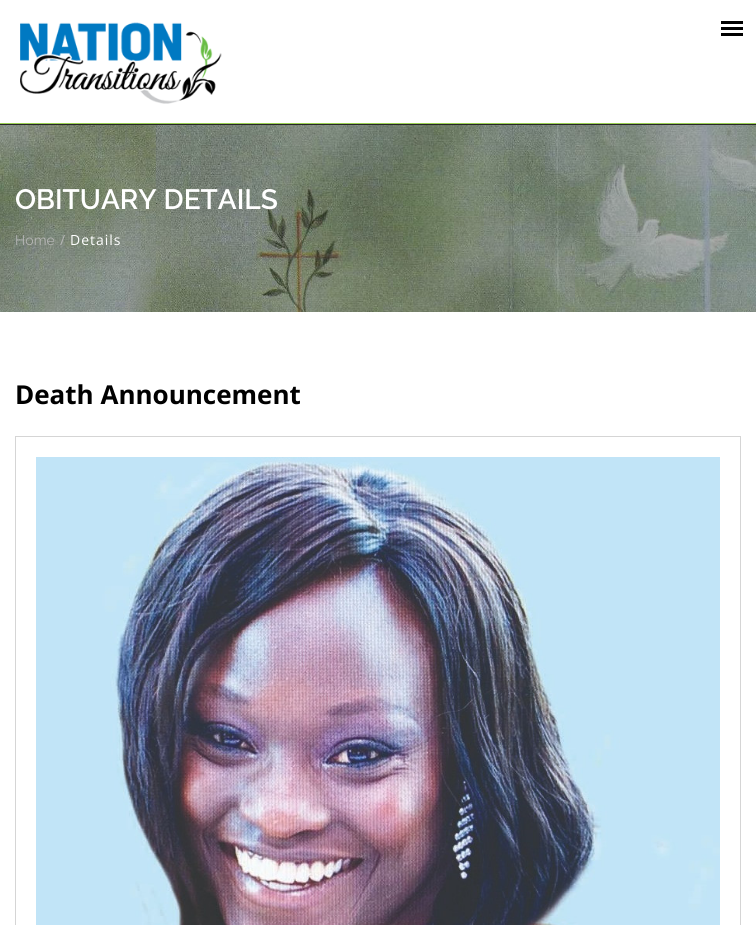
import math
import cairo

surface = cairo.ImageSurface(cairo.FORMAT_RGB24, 756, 925)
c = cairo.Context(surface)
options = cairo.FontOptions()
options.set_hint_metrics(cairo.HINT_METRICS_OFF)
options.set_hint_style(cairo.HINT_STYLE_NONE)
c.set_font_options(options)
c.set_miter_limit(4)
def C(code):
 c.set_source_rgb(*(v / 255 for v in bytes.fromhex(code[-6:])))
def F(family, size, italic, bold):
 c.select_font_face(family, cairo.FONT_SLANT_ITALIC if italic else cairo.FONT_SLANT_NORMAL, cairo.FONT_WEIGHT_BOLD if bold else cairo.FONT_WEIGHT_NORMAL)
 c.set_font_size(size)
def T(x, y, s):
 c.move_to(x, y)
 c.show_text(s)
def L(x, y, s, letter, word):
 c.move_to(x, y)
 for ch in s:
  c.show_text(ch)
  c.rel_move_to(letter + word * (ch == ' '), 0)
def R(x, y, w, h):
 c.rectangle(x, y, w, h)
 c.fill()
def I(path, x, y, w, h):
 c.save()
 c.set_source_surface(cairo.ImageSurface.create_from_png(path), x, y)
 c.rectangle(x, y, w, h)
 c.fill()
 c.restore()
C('ffffff')
c.paint()
C('99ce51')
R(0,123,756,1)
I('1.png',20,22,202,82)
C('000000')
R(721,21,22,3)
R(721,27,22,3)
R(721,33,22,3)
C('262626')
R(0,124,756,1)
I('2.png',0,125,756,187)
F('Raleway SemiBold',28,0,0)
C('ffffff')
T(15,209,'OBITUARY DETAILS')
F('Raleway',14,0,0)
C('b6b6b6')
T(15,245,'Home')
F('Open Sans',14,0,0)
T(60,245,'/')
C('ffffff')
L(70,245,'Details',1,0)
F('Open Sans',26,0,1)
C('000000')
T(15,404,'Death Announcement')
c.rectangle(15.5,436.5,725,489)
C('d5d5d5')
c.set_line_width(1)
c.stroke()
I('3.png',36,457,684,468)
surface.write_to_png('o.png')
